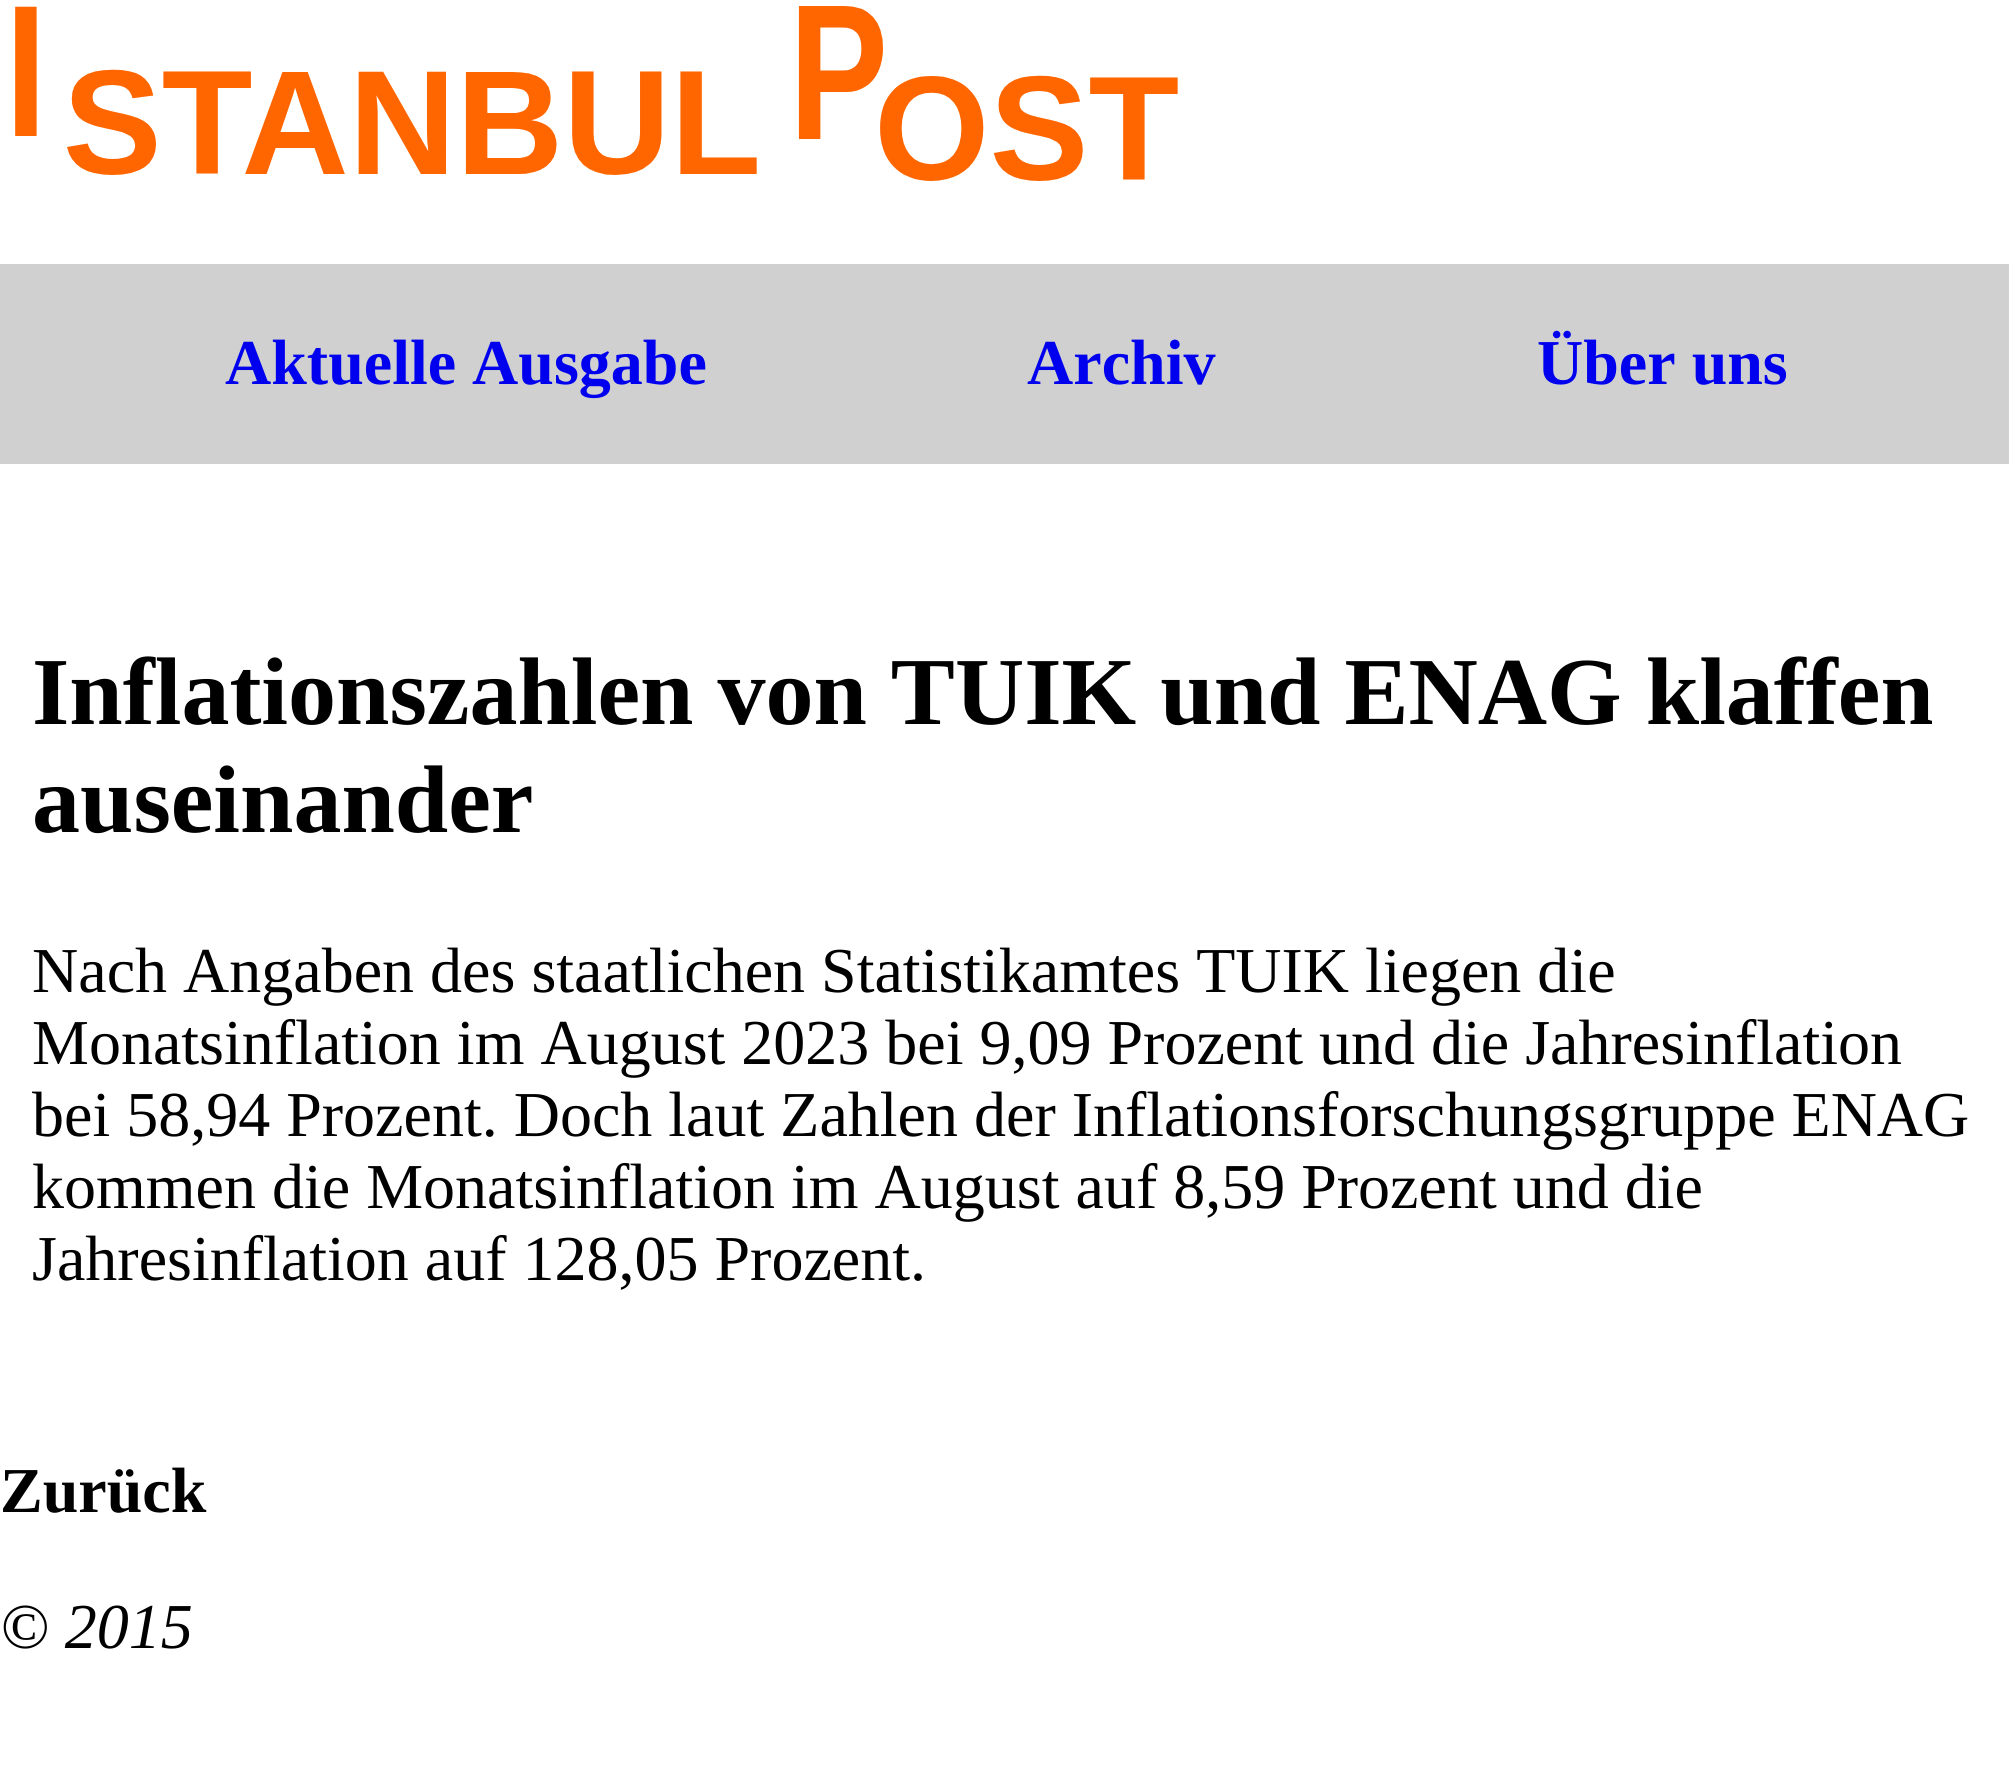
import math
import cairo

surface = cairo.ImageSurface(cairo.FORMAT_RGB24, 2009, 1779)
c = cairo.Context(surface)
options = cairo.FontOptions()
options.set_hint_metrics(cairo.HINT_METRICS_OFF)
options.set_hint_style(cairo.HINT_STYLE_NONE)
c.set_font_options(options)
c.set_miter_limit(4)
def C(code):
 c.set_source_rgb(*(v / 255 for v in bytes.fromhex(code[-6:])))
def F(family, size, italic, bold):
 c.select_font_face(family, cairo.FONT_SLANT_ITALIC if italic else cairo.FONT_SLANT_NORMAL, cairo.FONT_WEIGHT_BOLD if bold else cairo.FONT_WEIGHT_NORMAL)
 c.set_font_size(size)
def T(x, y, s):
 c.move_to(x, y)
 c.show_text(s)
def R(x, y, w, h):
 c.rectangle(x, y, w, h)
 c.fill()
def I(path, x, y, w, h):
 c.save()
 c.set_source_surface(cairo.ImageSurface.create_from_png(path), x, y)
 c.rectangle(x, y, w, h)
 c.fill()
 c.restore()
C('ffffff')
c.paint()
I('1.png',15,6,1163,175)
C('d0d0d0')
R(0,264,2009,200)
F('Liberation Serif',64,0,1)
C('0000ee')
T(225,384,'Aktuelle Ausgabe')
T(1027,384,'Archiv')
T(1537,384,'Über uns')
F('Liberation Serif',96,0,1)
C('000000')
T(32,724,'Inflationszahlen von TUIK und ENAG klaffen')
T(32,832,'auseinander')
F('Liberation Serif',64,0,0)
T(32,992,'Nach Angaben des staatlichen Statistikamtes TUIK liegen die')
T(32,1064,'Monatsinflation im August 2023 bei 9,09 Prozent und die Jahresinflation')
T(32,1136,'bei 58,94 Prozent. Doch laut Zahlen der Inflationsforschungsgruppe ENAG')
T(32,1208,'kommen die Monatsinflation im August auf 8,59 Prozent und die')
T(32,1280,'Jahresinflation auf 128,05 Prozent.')
F('Liberation Serif',64,0,1)
T(0,1512,'Zurück')
F('Liberation Serif',64,1,0)
T(0,1648,'© 2015')
surface.write_to_png('o.png')
